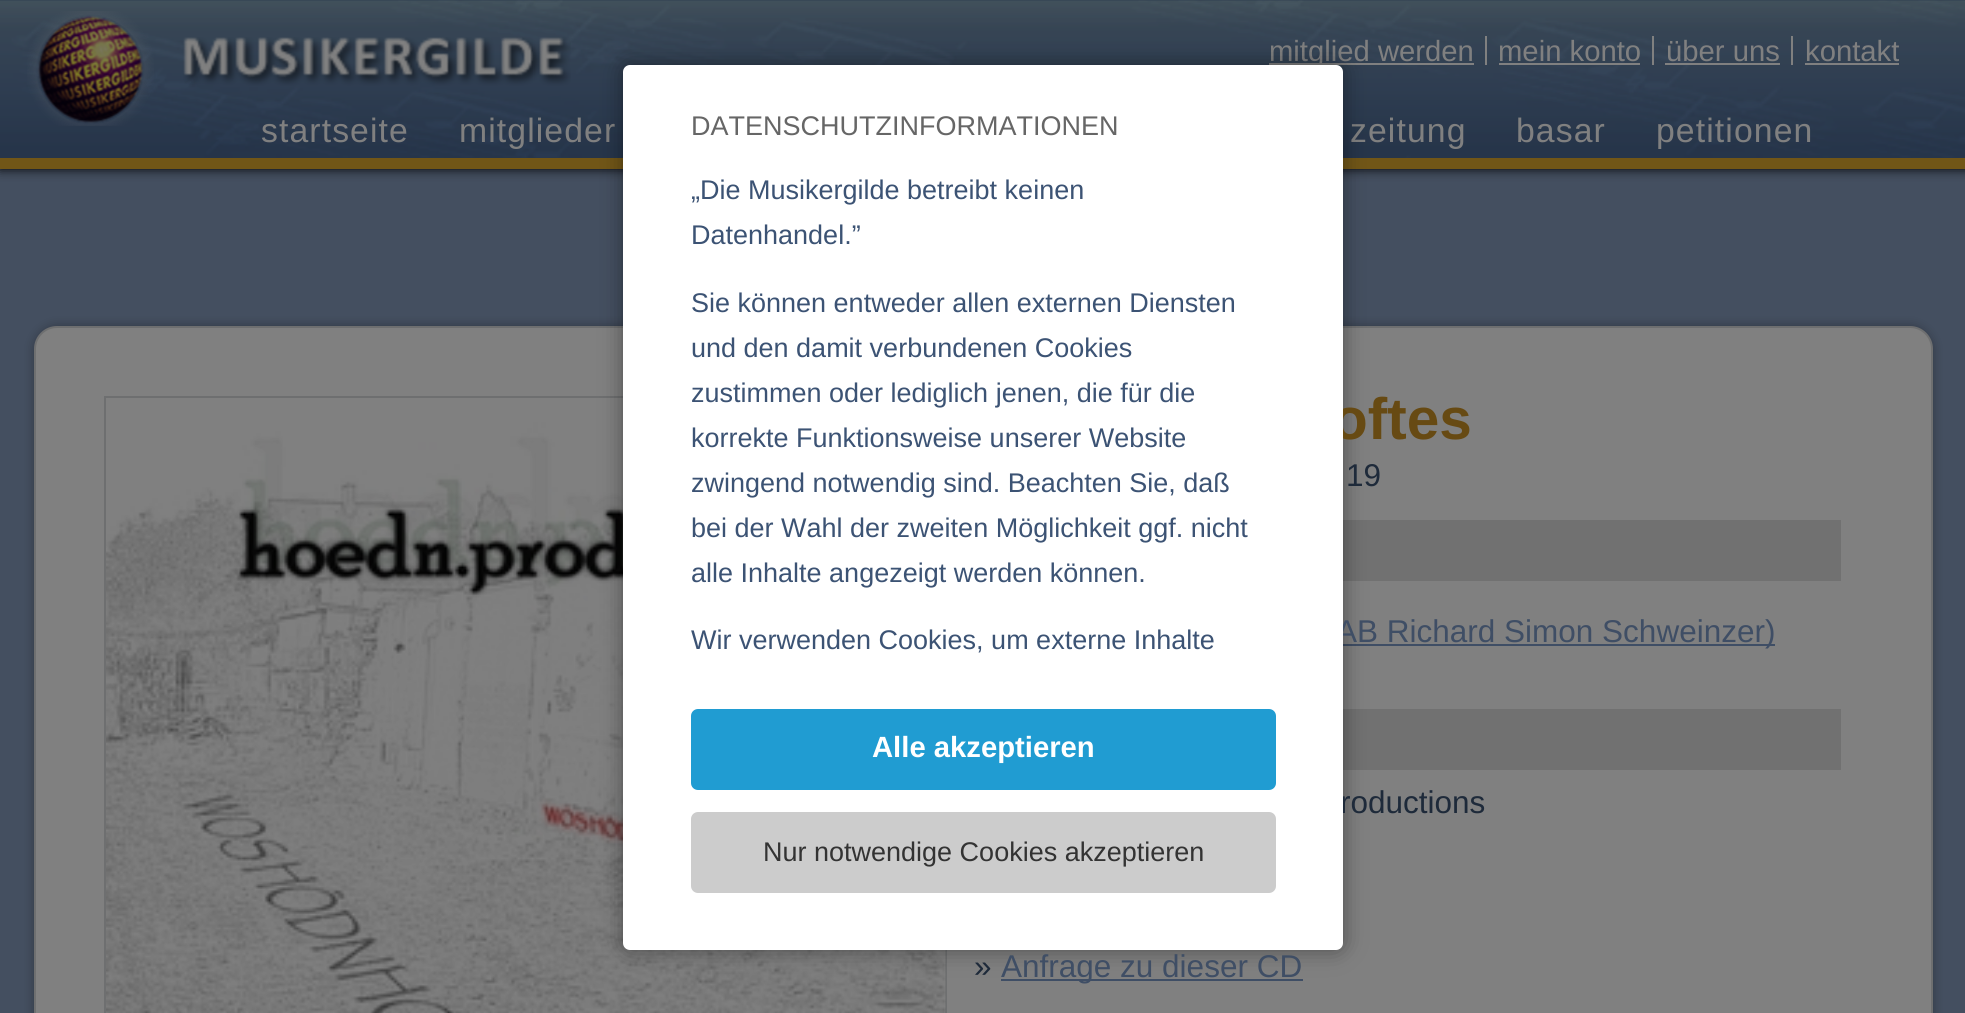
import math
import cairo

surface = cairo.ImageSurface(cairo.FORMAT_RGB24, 1965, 1013)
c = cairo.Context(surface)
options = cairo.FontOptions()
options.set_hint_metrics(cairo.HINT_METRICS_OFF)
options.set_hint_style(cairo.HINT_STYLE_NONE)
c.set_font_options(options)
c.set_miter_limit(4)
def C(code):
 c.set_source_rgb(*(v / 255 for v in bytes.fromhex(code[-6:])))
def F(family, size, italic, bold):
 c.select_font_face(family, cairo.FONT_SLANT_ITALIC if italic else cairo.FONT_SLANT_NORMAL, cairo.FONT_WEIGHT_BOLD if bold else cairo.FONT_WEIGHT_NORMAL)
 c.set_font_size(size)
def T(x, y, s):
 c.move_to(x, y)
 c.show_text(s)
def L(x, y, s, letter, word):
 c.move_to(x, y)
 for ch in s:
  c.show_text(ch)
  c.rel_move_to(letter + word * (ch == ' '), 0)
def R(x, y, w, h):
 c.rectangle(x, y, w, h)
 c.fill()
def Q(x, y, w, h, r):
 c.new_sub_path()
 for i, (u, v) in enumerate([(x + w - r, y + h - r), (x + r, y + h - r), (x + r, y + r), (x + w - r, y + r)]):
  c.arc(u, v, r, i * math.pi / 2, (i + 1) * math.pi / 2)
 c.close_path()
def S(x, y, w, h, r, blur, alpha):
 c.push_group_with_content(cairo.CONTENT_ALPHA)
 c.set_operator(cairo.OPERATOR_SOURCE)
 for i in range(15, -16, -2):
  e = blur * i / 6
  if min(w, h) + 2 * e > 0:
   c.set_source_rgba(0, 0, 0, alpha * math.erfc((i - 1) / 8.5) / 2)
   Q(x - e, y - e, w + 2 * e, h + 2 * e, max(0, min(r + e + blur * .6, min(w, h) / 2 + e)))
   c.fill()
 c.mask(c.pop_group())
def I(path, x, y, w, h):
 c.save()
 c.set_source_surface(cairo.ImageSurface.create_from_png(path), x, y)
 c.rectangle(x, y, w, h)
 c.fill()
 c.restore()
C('444f60')
c.paint()
C('000000')
S(0,0,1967,169,0,5.5,1)
I('1.png',0,0,1965,158)
C('715617')
R(0,158,1965,11)
I('2.png',27,11,127,115)
I('3.png',183,37,388,49)
C('808080')
R(1269,63,205,2)
F('Liberation Sans',29.25,0,0)
T(1269,61,'mitglied werden')
R(1485,36,2,29)
T(1498,61,'mein konto')
R(1499,63,141,2)
R(1652,36,2,29)
T(1666,61,'über uns')
R(1665,63,115,2)
R(1791,36,2,29)
T(1805,61,'kontakt')
R(1805,63,94,2)
F('Liberation Sans',33.75,0,0)
L(261,142,'startseite',1.1,0)
L(459,142,'mitglieder',1.1,0)
L(1350,142,'zeitung',1.1,0)
L(1516,142,'basar',1.1,0)
L(1656,142,'petitionen',1.1,0)
C('000000')
S(34,326,1899,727,23,5.5,.3)
C('808080')
Q(35,327,1897,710,22)
c.fill_preserve()
C('6e6f70')
c.stroke()
c.rectangle(105,397,841,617)
c.stroke()
I('4.png',106,398,840,615)
C('717171')
R(1343,520,498,61)
C('3f4e65')
R(1343,644,432,2)
C('717171')
R(1343,709,498,61)
C('3f4e65')
R(1001,979,302,2)
C('000000')
S(623,65,720,885,7,11,.4)
F('Liberation Sans',58.5,0,1)
C('674a13')
T(1332,439,'oftes')
F('Liberation Sans',31.5,0,0)
C('3f4e65')
T(1336,642,'AB Richard Simon Schweinzer)')
C('1e2a3a')
T(1340,813,'roductions')
C('ffffff')
Q(623,65,720,885,7)
c.fill()
F('Liberation Sans',27,0,0)
C('666666')
T(691,135,'DATENSCHUTZINFORMATIONEN')
C('3c5374')
T(691,199,'„Die Musikergilde betreibt keinen')
T(691,244,'Datenhandel.”')
T(691,312,'Sie können entweder allen externen Diensten')
T(691,357,'und den damit verbundenen Cookies')
T(691,402,'zustimmen oder lediglich jenen, die für die')
T(691,447,'korrekte Funktionsweise unserer Website')
T(691,492,'zwingend notwendig sind. Beachten Sie, daß')
T(691,537,'bei der Wahl der zweiten Möglichkeit ggf. nicht')
T(691,582,'alle Inhalte angezeigt werden können.')
T(691,649,'Wir verwenden Cookies, um externe Inhalte')
C('209cd2')
Q(691,709,585,81,7)
c.fill()
F('Liberation Sans',29.25,0,1)
C('ffffff')
T(872,757,'Alle akzeptieren')
C('cccccc')
Q(691,812,585,81,7)
c.fill()
F('Liberation Sans',27,0,0)
C('333333')
T(763,861,'Nur notwendige Cookies akzeptieren')
F('Liberation Sans',31.5,0,0)
C('1e2a3a')
T(1346,486,'19')
T(974,977,'»')
C('3f4e65')
T(1001,977,'Anfrage zu dieser CD')
surface.write_to_png('o.png')
